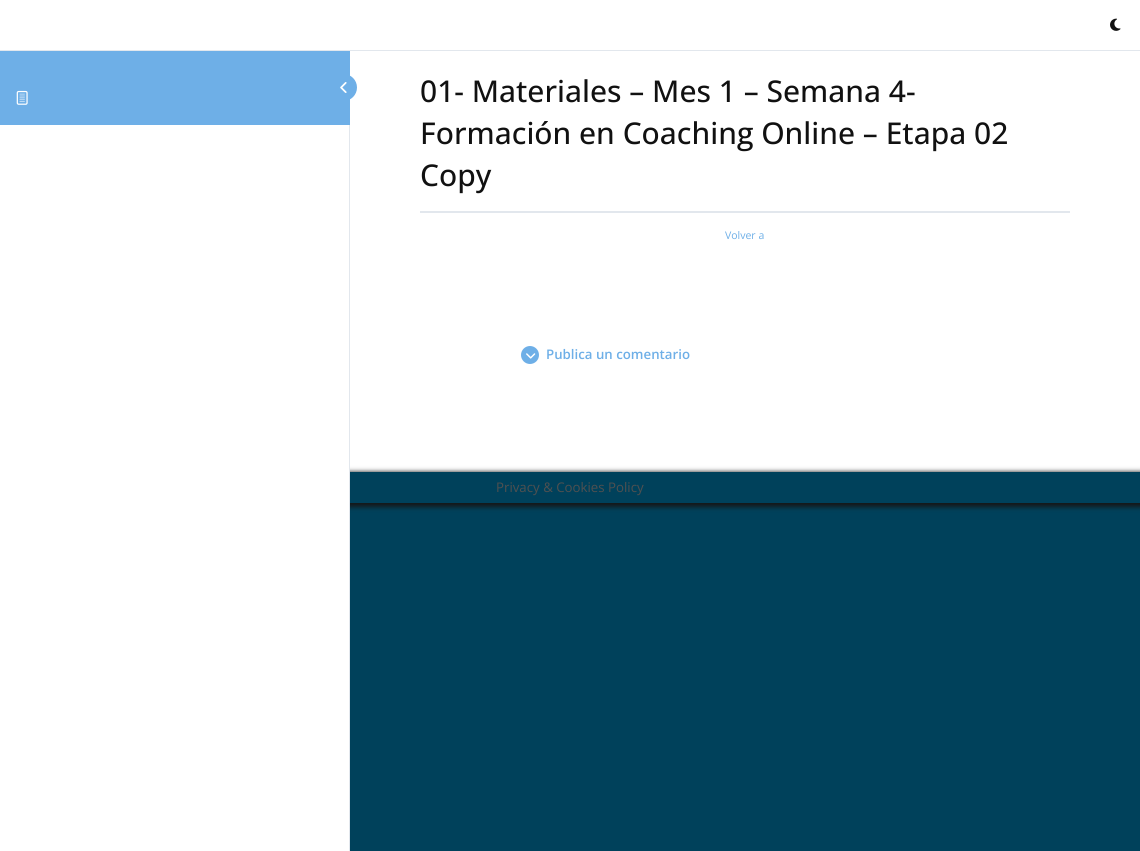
import math
import cairo

surface = cairo.ImageSurface(cairo.FORMAT_RGB24, 1140, 851)
c = cairo.Context(surface)
options = cairo.FontOptions()
options.set_hint_metrics(cairo.HINT_METRICS_OFF)
options.set_hint_style(cairo.HINT_STYLE_NONE)
c.set_font_options(options)
c.set_miter_limit(4)
def C(code):
 c.set_source_rgb(*(v / 255 for v in bytes.fromhex(code[-6:])))
def F(family, size, italic, bold):
 c.select_font_face(family, cairo.FONT_SLANT_ITALIC if italic else cairo.FONT_SLANT_NORMAL, cairo.FONT_WEIGHT_BOLD if bold else cairo.FONT_WEIGHT_NORMAL)
 c.set_font_size(size)
def T(x, y, s):
 c.move_to(x, y)
 c.show_text(s)
def R(x, y, w, h):
 c.rectangle(x, y, w, h)
 c.fill()
def Q(x, y, w, h, r):
 c.new_sub_path()
 for i, (u, v) in enumerate([(x + w - r, y + h - r), (x + r, y + h - r), (x + r, y + r), (x + w - r, y + r)]):
  c.arc(u, v, r, i * math.pi / 2, (i + 1) * math.pi / 2)
 c.close_path()
def S(x, y, w, h, r, blur, alpha):
 c.push_group_with_content(cairo.CONTENT_ALPHA)
 c.set_operator(cairo.OPERATOR_SOURCE)
 for i in range(15, -16, -2):
  e = blur * i / 6
  if min(w, h) + 2 * e > 0:
   c.set_source_rgba(0, 0, 0, alpha * math.erfc((i - 1) / 8.5) / 2)
   Q(x - e, y - e, w + 2 * e, h + 2 * e, max(0, min(r + e + blur * .6, min(w, h) / 2 + e)))
   c.fill()
 c.mask(c.pop_group())
def I(path, x, y, w, h):
 c.save()
 c.set_source_surface(cairo.ImageSurface.create_from_png(path), x, y)
 c.rectangle(x, y, w, h)
 c.fill()
 c.restore()
C('00415b')
c.paint()
C('ffffff')
R(350,51,790,421)
c.save()
c.set_fill_rule(cairo.FILL_RULE_EVEN_ODD)
c.new_path()
c.move_to(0,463)
c.line_to(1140,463)
c.line_to(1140,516)
c.line_to(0,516)
c.close_path()
c.move_to(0,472)
c.line_to(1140,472)
c.line_to(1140,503)
c.line_to(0,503)
c.close_path()
c.clip()
C('161616')
S(0,472,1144,35,0,2.5,1)
c.restore()
R(0,125,349,726)
C('e2e7ed')
R(349,125,1,726)
C('6eafe7')
R(0,51,350,74)
I('1.png',16,90,12,15)
c.arc(343.5,87.5,13.5,0,2 * math.pi)
c.fill()
I('2.png',340,82,7,11)
C('ffffff')
R(0,0,1140,50)
C('e2e7ed')
R(0,50,1140,1)
I('3.png',1110,18,11,13)
F('Open Sans Medium',30,0,0)
C('111111')
T(420,102,'01- Materiales – Mes 1 – Semana 4-')
T(420,144,'Formación en Coaching Online – Etapa 02')
T(420,186,'Copy')
C('e2e7ed')
R(420,211,650,2)
F('Open Sans',10.5,0,0)
C('6eafe7')
T(725,239,'Volver a')
c.new_path()
c.arc(530,355,9,0,2 * math.pi)
c.fill()
I('4.png',526,353,10,6)
F('Open Sans SemiBold',13.25,0,0)
T(546,359,'Publica un comentario')
F('Open Sans',13.25,0,0)
C('505050')
T(496,492,'Privacy & Cookies Policy')
surface.write_to_png('o.png')
